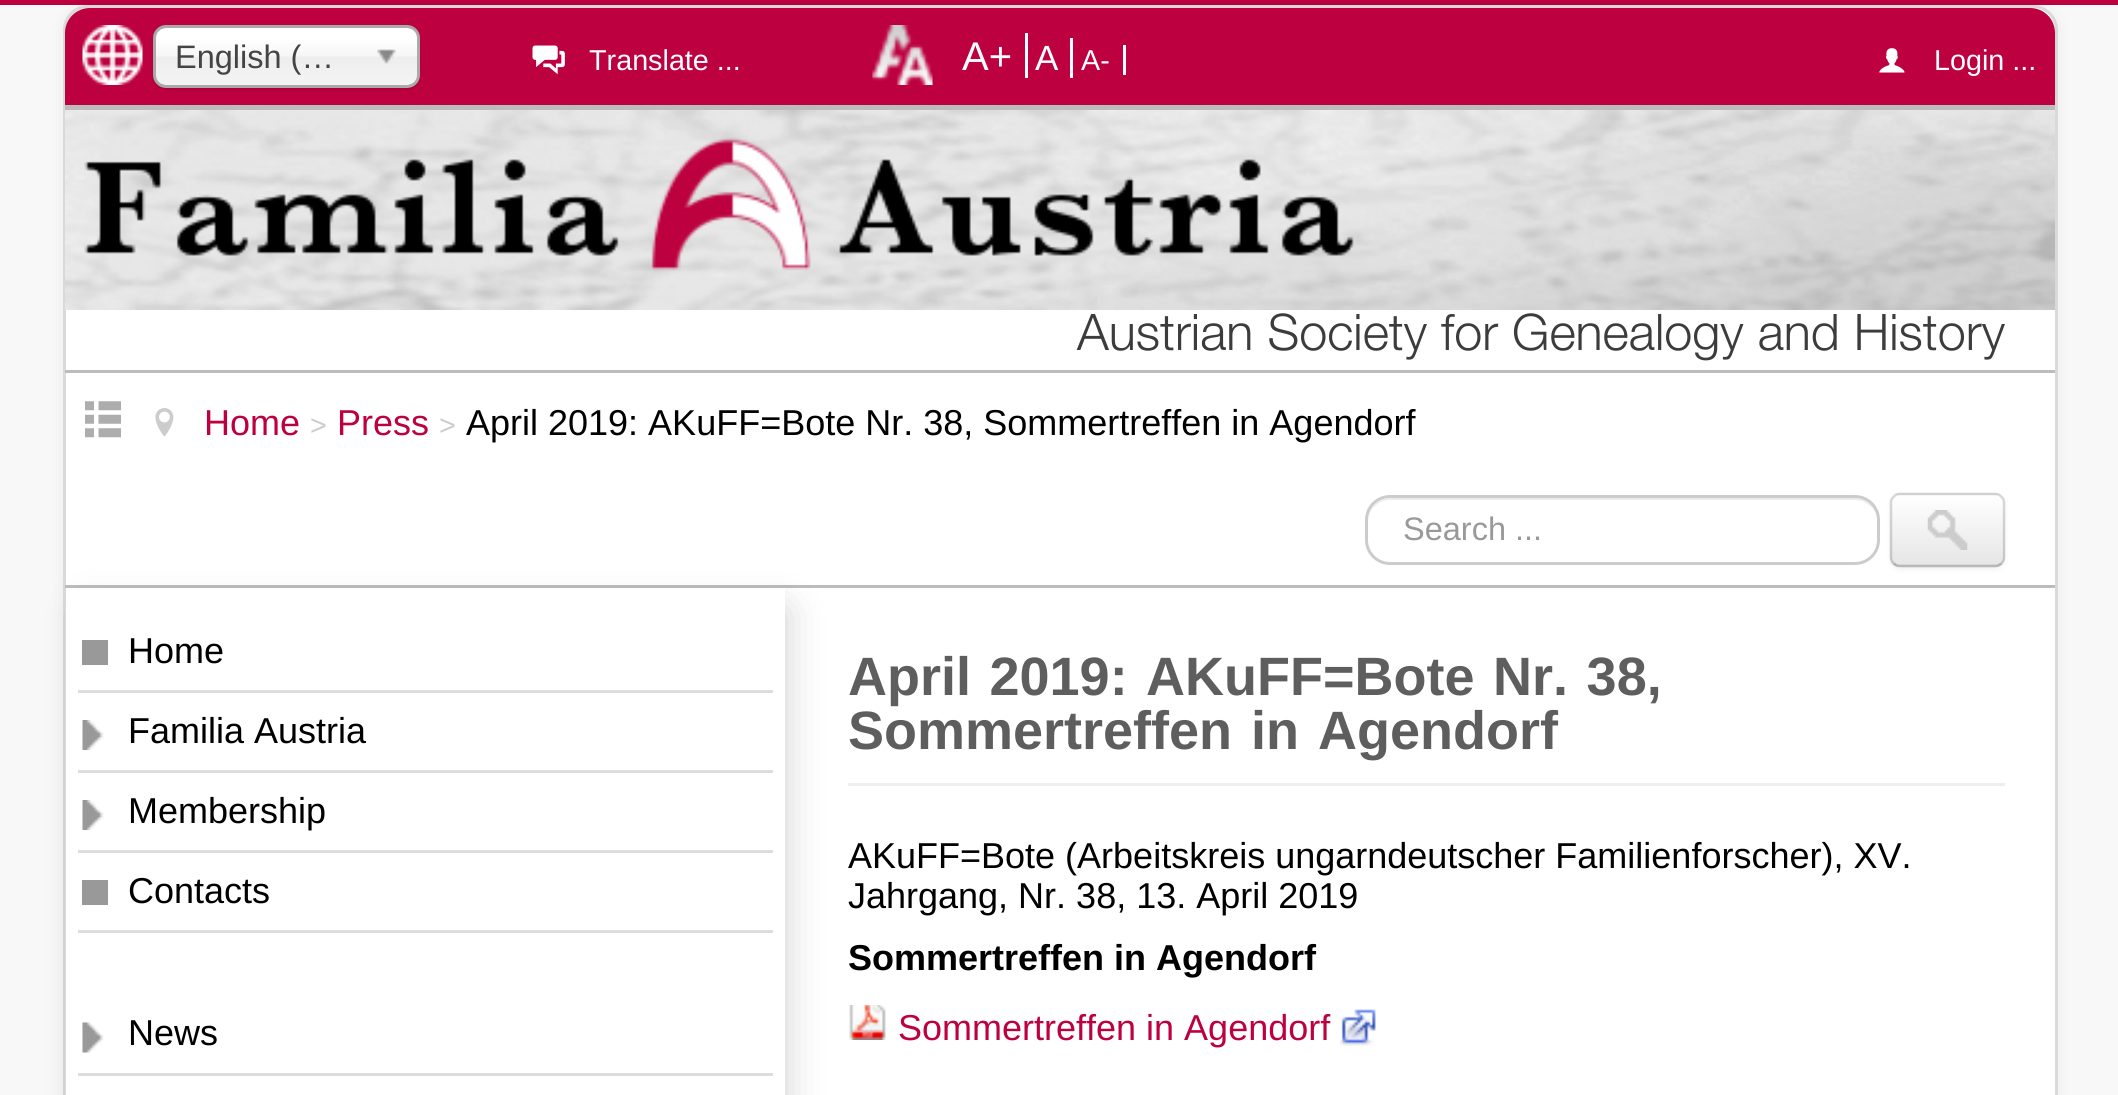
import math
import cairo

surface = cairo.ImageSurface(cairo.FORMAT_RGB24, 2118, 1095)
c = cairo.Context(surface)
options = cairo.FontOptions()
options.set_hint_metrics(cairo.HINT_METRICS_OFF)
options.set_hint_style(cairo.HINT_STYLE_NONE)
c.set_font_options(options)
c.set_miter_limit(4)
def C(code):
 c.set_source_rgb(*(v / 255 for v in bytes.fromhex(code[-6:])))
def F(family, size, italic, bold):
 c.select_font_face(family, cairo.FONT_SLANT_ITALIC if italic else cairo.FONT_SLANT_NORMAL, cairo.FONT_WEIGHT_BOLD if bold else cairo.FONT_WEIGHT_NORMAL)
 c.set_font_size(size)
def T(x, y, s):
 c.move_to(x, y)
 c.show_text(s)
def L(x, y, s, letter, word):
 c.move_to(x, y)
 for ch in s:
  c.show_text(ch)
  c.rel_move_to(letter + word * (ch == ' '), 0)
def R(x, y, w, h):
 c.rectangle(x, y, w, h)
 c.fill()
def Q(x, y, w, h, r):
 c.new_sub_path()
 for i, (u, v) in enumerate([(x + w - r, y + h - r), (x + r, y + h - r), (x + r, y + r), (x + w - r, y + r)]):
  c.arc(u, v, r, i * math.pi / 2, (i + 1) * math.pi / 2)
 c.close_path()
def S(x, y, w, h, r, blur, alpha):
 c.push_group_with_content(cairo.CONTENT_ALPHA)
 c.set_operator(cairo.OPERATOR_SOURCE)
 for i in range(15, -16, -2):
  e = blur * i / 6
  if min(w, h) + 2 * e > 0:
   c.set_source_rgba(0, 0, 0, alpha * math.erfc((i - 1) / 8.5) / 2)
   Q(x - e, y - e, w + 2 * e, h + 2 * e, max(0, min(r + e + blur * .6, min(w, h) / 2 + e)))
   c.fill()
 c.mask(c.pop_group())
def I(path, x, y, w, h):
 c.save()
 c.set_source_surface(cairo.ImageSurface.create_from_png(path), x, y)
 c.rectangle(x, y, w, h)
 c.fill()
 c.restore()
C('f8f8f8')
c.paint()
C('bd003f')
R(0,0,2118,5)
C('000000')
S(63,5,1995,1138,25,7.5,.05)
C('ffffff')
Q(63,5,1995,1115,25)
c.fill()
Q(64.5,6.5,1992,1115,23.5)
c.set_source_rgba(0,0,0,0.15)
c.set_line_width(3)
c.stroke()
C('bd003f')
c.new_path()
c.move_to(90,8)
c.line_to(2030,8)
c.curve_to(2044,8,2055,19,2055,33)
c.line_to(2055,110)
c.line_to(65,110)
c.line_to(65,33)
c.curve_to(65,19,76,8,90,8)
c.close_path()
c.fill()
C('bcbcbc')
R(65,105,1990,5)
I('1.png',82,25,61,60)
C('000000')
S(153,28,267,62,13,1,.1)
gradient = cairo.LinearGradient(286,27,286,85)
gradient.add_color_stop_rgba(.2,1,1,1,1)
gradient.add_color_stop_rgba(.5,0.965,0.965,0.965,1)
gradient.add_color_stop_rgba(.52,0.933,0.933,0.933,1)
gradient.add_color_stop_rgba(1,0.957,0.957,0.957,1)
c.set_source(gradient)
Q(155,28,263,57,10)
c.fill()
Q(154.5,26.5,264,60,11.5)
C('aaaaaa')
c.stroke()
F('Liberation Sans',32.5,0,0)
C('444444')
T(175,68,'English (…')
I('2.png',377,49,19,15)
I('3.png',532,45,33,30)
F('Liberation Sans',28.75,0,0)
C('ffffff')
T(589,70,'Translate ...')
I('4.png',872,25,61,60)
F('Liberation Sans',40,0,0)
T(962,70,'A+')
R(1025,33,3,45)
F('Liberation Sans',35,0,0)
T(1035,70,'A')
R(1070,38,3,40)
F('Liberation Sans',28.75,0,0)
T(1081,70,'A-')
R(1123,45,3,30)
I('5.png',1879,48,26,25)
T(1934,70,'Login ...')
I('6.png',65,110,1990,200)
I('7.png',84,137,1270,134)
F('Helvetica Neue Light',50.4,0,0)
C('3c3c3c')
T(1077,350,'Austrian Society for Genealogy and History')
C('bcbcbc')
R(65,370,1990,3)
R(65,585,1990,3)
I('8.png',85,401,36,37)
I('9.png',155,408,19,29)
F('Liberation Sans',36,0,0)
C('bd003f')
T(204,435,'Home')
F('Liberation Sans',28.75,0,0)
C('cccccc')
T(310,435,'>')
F('Liberation Sans',36,0,0)
C('bd003f')
T(337,435,'Press')
F('Liberation Sans',28.75,0,0)
C('cccccc')
T(439,435,'>')
F('Liberation Sans',36,0,0)
C('000000')
T(466,435,'April 2019: AKuFF=Bote Nr. 38, Sommertreffen in Agendorf')
C('ececec')
c.new_path()
c.move_to(1390,500)
c.line_to(1855,500)
c.curve_to(1867,500,1878,510,1878,522)
c.line_to(1878,521)
c.curve_to(1878,508,1868,498,1855,498)
c.line_to(1391,498)
c.curve_to(1378,498,1368,508,1368,521)
c.line_to(1368,522)
c.curve_to(1368,510,1378,500,1390,500)
c.close_path()
c.fill()
Q(1366.5,496.5,512,67,23.5)
C('cccccc')
c.stroke()
F('Liberation Sans',32.5,0,0)
C('999999')
T(1403,540,'Search ...')
C('000000')
S(1890,495,115,75,10,2.5,.05)
C('f5f5f5')
Q(1890,493,115,75,10)
c.fill()
c.save()
Q(1890,493,115,75,10)
c.clip()
gradient = cairo.LinearGradient(1948,495,1948,565)
gradient.add_color_stop_rgba(0,1,1,1,1)
gradient.add_color_stop_rgba(1,0.902,0.902,0.902,1)
c.set_source(gradient)
R(1890,495,115,70)
c.restore()
c.set_source_rgba(1,1,1,0.2)
c.new_path()
c.move_to(1900,498)
c.line_to(1979,498)
c.curve_to(2006,498,2002,496,2002,523)
c.line_to(2002,561)
c.curve_to(2003,560,2003,558,2003,557)
c.line_to(2003,503)
c.curve_to(2003,499,1999,495,1995,495)
c.line_to(1901,495)
c.curve_to(1897,495,1894,498,1893,501)
c.curve_to(1895,499,1897,498,1900,498)
c.close_path()
c.fill()
c.new_path()
c.move_to(2001,563.5)
c.curve_to(1999.5,565.5,1997.5,566,1995,566)
c.line_to(1900,566)
c.curve_to(1897.5,566,1895.5,565.5,1894,563.5)
c.set_source_rgba(0,0,0,0.25)
c.set_line_width(2.5)
c.stroke()
c.new_path()
c.move_to(1894,563.5)
c.curve_to(1892,562,1891,560,1891,557.5)
c.line_to(1891,502.5)
c.curve_to(1891,500,1892,498,1894,496.5)
c.curve_to(1895.5,494.5,1897.5,494,1900,494)
c.line_to(1995,494)
c.curve_to(1997.5,494,1999.5,494.5,2001,496.5)
c.curve_to(2003,498,2004,500,2004,502.5)
c.line_to(2004,557.5)
c.curve_to(2004,560,2003,562,2001,563.5)
c.set_source_rgba(0,0,0,0.15)
c.stroke()
I('10.png',1927,510,41,40)
c.save()
c.set_fill_rule(cairo.FILL_RULE_EVEN_ODD)
c.new_path()
c.move_to(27,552)
c.line_to(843,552)
c.line_to(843,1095)
c.line_to(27,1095)
c.close_path()
c.move_to(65,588)
c.line_to(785,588)
c.line_to(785,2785)
c.line_to(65,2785)
c.close_path()
c.clip()
C('000000')
S(85,610,700,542,0,19,.2)
c.restore()
C('999999')
R(82,640,26,25)
F('Liberation Sans',36,0,0)
C('000000')
T(128,663,'Home')
C('dddddd')
R(78,690,695,3)
I('11.png',82,720,22,30)
C('000000')
T(128,743,'Familia Austria')
C('dddddd')
R(78,770,695,3)
I('11.png',82,800,22,30)
C('000000')
T(128,823,'Membership')
C('dddddd')
R(78,850,695,3)
C('999999')
R(82,880,26,25)
C('000000')
T(128,903,'Contacts')
C('dddddd')
R(78,930,695,3)
I('12.png',82,1022,22,31)
C('000000')
T(128,1045,'News')
C('dddddd')
R(78,1073,695,3)
C('eeeeee')
R(848,783,1157,3)
F('Liberation Sans',54,0,1)
C('5e5e5e')
L(848,695,'April 2019: AKuFF=Bote Nr. 38,',0,3.5)
L(848,749,'Sommertreffen in Agendorf',0,4)
F('Liberation Sans',36,0,0)
C('000000')
T(848,868,'AKuFF=Bote (Arbeitskreis ungarndeutscher Familienforscher), XV.')
T(848,908,'Jahrgang, Nr. 38, 13. April 2019')
F('Liberation Sans',36,0,1)
T(848,970,'Sommertreffen in Agendorf')
I('13.png',849,1005,37,35)
F('Liberation Sans',36,0,0)
C('bd003f')
T(898,1040,'Sommertreffen in Agendorf')
I('14.png',1340,1009,36,37)
surface.write_to_png('o.png')
